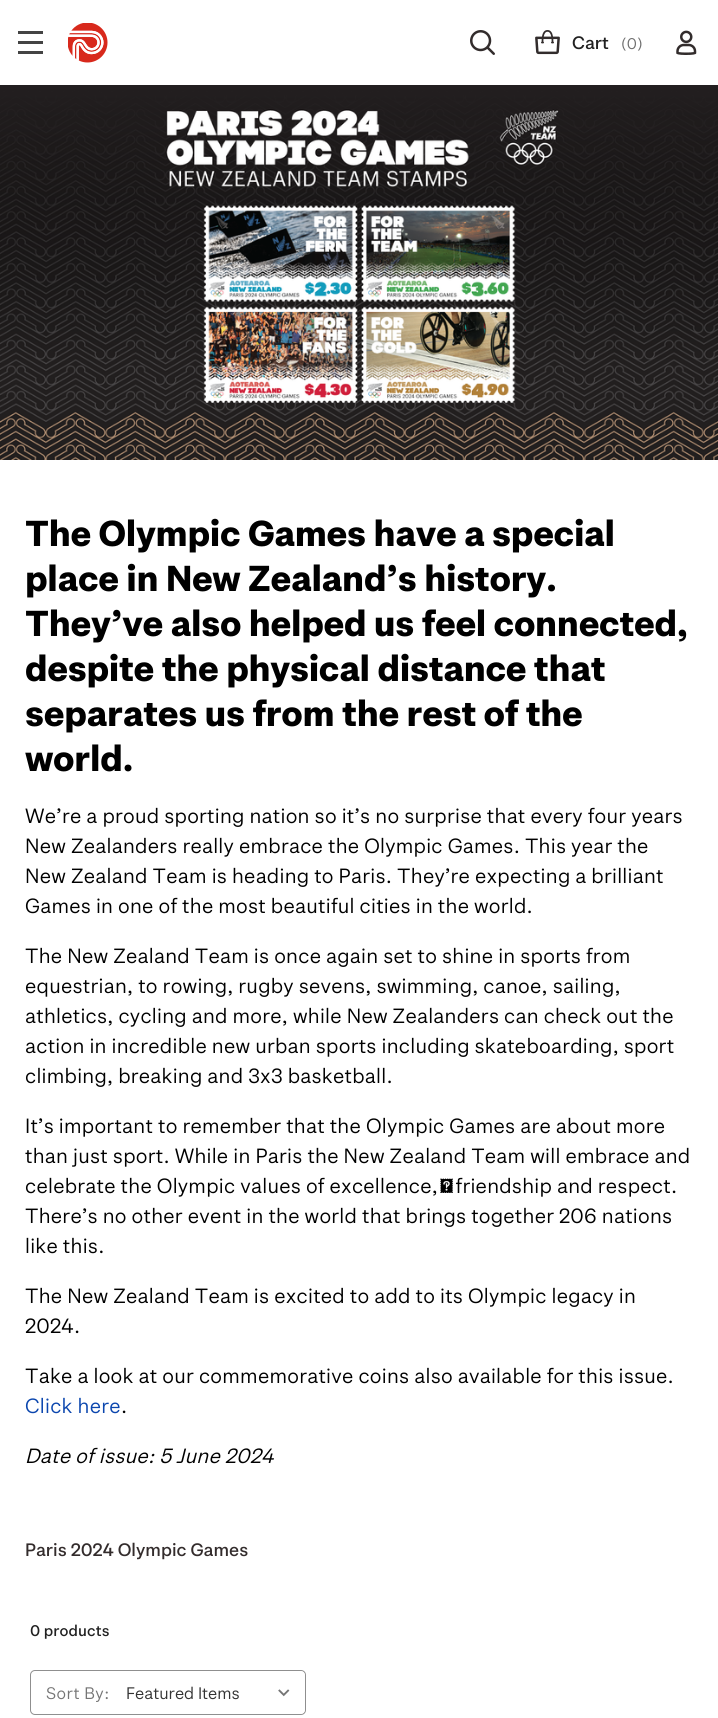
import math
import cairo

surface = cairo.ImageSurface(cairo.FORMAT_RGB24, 718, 1718)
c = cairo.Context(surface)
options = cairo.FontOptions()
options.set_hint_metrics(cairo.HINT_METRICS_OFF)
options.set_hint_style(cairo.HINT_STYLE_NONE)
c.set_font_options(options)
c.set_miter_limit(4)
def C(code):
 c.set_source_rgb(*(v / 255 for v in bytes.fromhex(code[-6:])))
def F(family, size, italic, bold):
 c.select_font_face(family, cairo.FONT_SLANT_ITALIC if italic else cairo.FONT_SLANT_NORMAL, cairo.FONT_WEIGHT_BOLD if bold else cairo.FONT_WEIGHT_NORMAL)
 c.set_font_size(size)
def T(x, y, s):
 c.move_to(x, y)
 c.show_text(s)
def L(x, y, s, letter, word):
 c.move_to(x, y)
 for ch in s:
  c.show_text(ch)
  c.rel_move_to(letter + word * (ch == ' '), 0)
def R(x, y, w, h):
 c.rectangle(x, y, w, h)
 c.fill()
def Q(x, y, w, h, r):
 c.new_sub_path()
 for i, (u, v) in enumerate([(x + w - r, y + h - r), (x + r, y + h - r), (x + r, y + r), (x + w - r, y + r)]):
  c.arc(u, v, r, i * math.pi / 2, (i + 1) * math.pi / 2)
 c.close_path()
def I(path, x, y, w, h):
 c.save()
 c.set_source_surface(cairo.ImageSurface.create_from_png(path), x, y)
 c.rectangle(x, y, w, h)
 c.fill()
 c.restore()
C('ffffff')
c.paint()
C('444444')
R(18,41,25,3)
R(18,31,25,3)
R(18,51,25,3)
I('1.png',68,23,40,40)
I('2.png',470,30,25,25)
I('3.png',535,30,25,25)
F('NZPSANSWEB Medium',17.5,0,0)
C('212121')
T(572,49,'Cart')
F('NZPSANSWEB',15,0,0)
C('6f6f6f')
L(621,49,'(0)',.1,0)
I('4.png',676,30,21,25)
I('5.png',0,85,718,375)
F('NZPSANSWEB',35,0,1)
C('000000')
L(25,546,'The Olympic Games have a special',-.3,0)
L(25,591,'place in New Zealand’s history.',-.3,0)
L(25,636,'They’ve also helped us feel connected,',-.3,0)
L(25,681,'despite the physical distance that',-.3,0)
L(25,726,'separates us from the rest of the',-.3,0)
L(25,771,'world.',-.3,0)
F('NZPSANSWEB',20,0,0)
L(25,823,'We’re a proud sporting nation so it’s no surprise that every four years',.25,0)
L(25,853,'New Zealanders really embrace the Olympic Games. This year the',.25,0)
L(25,883,'New Zealand Team is heading to Paris. They’re expecting a brilliant',.25,0)
L(25,913,'Games in one of the most beautiful cities in the world.',.25,0)
L(25,963,'The New Zealand Team is once again set to shine in sports from',.25,0)
L(25,993,'equestrian, to rowing, rugby sevens, swimming, canoe, sailing,',.25,0)
L(25,1023,'athletics, cycling and more, while New Zealanders can check out the',.25,0)
L(25,1053,'action in incredible new urban sports including skateboarding, sport',.25,0)
L(25,1083,'climbing, breaking and 3x3 basketball.',.25,0)
L(25,1133,'It’s important to remember that the Olympic Games are about more',.25,0)
L(25,1163,'than just sport. While in Paris the New Zealand Team will embrace and',.25,0)
L(25,1193,'celebrate the Olympic values of excellence, friendship and respect.',.25,0)
L(25,1223,'There’s no other event in the world that brings together 206 nations',.25,0)
L(25,1253,'like this.',.25,0)
L(25,1303,'The New Zealand Team is excited to add to its Olympic legacy in',.25,0)
L(25,1333,'2024.',.25,0)
L(25,1383,'Take a look at our commemorative coins also available for this issue.',.25,0)
C('0b46ae')
L(25,1413,'Click here',.25,0)
C('000000')
L(121,1413,'.',.25,0)
F('NZPSANSWEB',20,1,0)
L(25,1463,'Date of issue: 5 June 2024',.25,0)
F('NZPSANSWEB Medium',17.5,0,0)
C('332c2c')
T(25,1556,'Paris 2024 Olympic Games')
F('NZPSANSWEB Medium',15,0,0)
C('212121')
L(30,1636,'0 products',.1,0)
Q(30.5,1670.5,275,44,4.5)
C('8f8f8f')
c.set_line_width(1)
c.stroke()
F('NZPSANSWEB',16.25,0,0)
C('757575')
L(46,1699,'Sort By:',.5,0)
C('ffffff')
Q(123,1671,182,43,5)
c.fill()
I('6.png',278,1689,12,8)
C('333333')
T(126,1699,'Featured Items')
surface.write_to_png('o.png')
